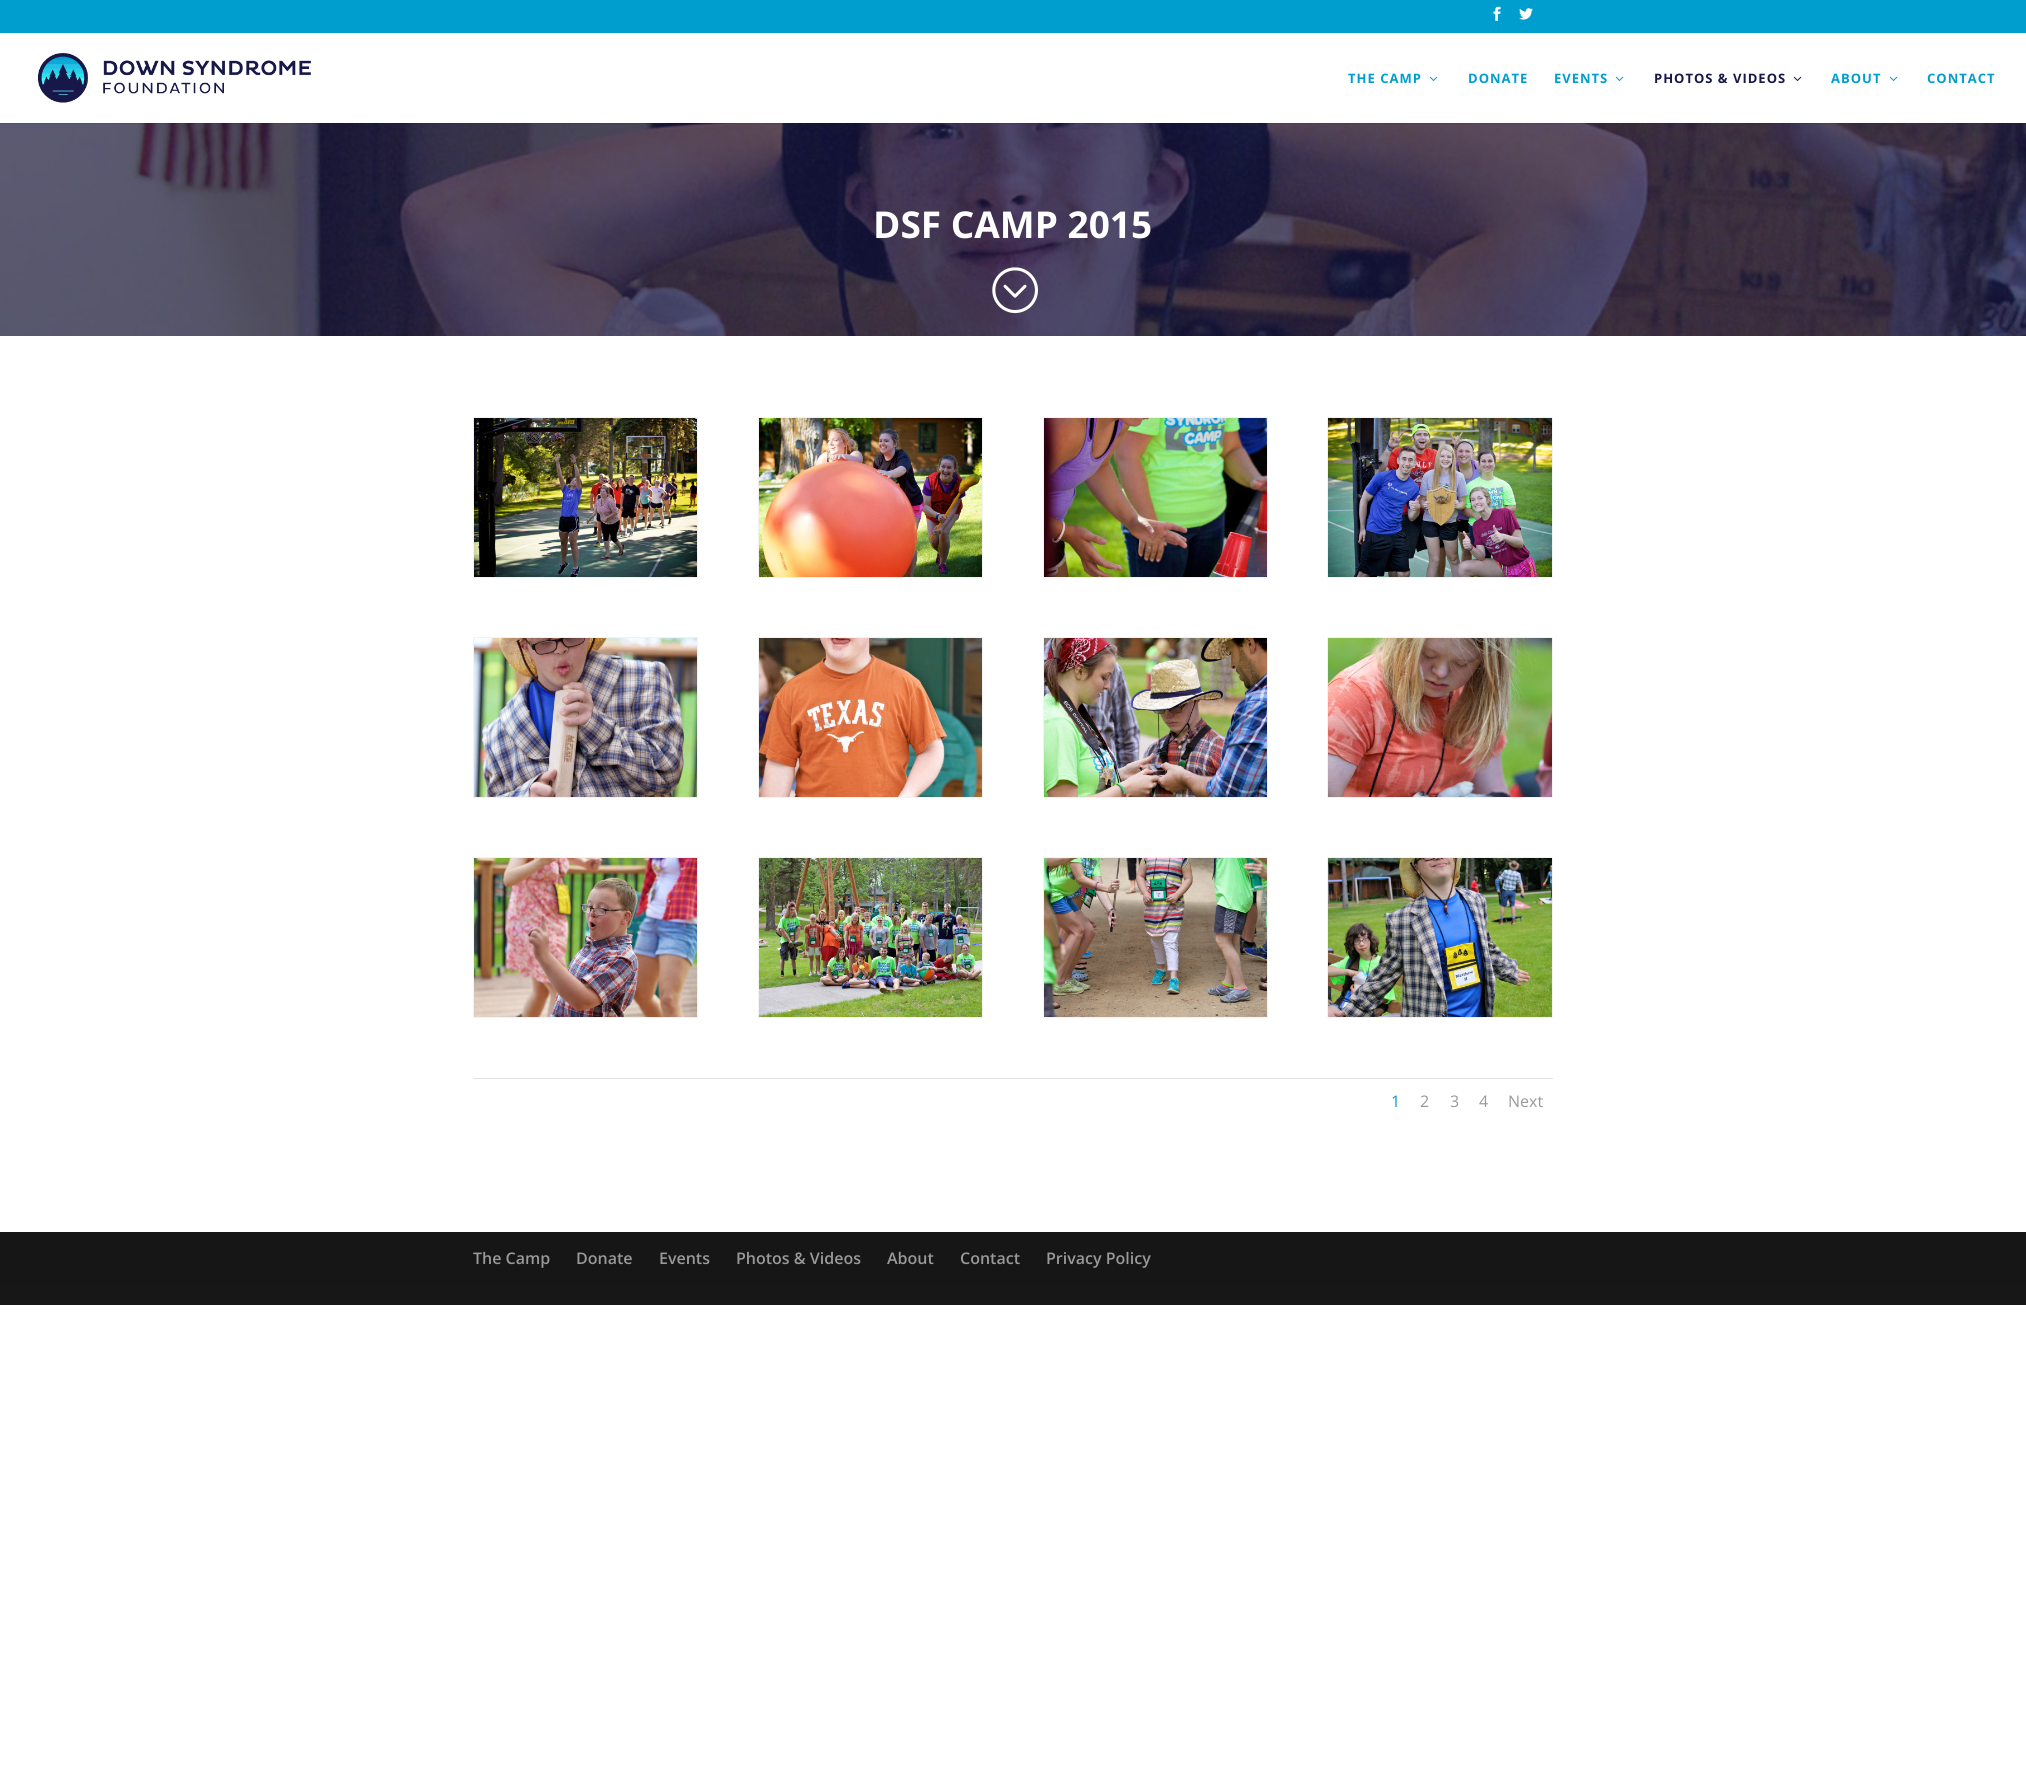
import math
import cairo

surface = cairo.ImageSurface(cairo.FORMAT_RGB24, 2026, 1782)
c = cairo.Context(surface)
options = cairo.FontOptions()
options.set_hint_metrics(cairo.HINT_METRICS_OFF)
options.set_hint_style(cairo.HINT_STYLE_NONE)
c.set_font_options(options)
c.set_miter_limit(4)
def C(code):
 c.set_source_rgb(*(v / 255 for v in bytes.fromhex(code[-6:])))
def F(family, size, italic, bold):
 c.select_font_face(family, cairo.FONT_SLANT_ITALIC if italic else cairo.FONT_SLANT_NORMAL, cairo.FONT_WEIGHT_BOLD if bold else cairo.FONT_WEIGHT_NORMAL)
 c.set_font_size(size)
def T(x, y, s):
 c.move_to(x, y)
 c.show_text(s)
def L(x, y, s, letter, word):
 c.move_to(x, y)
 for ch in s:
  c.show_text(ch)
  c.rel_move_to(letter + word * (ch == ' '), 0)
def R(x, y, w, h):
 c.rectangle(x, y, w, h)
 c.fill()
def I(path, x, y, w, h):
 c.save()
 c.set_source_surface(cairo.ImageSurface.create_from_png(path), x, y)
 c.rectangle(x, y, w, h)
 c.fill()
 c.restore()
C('ffffff')
c.paint()
C('009ece')
R(0,0,2026,33)
I('1.png',1493,6,8,15)
I('2.png',1519,8,14,12)
I('6.png',0,123,2026,213)
c.set_source_rgba(0,0,0,0.1)
R(0,123,2026,1)
I('3.png',38,53,273,50)
F('Open Sans',13,0,1)
C('009ece')
L(1348,83,'THE CAMP',1,0)
I('4.png',1429,76,9,5)
L(1468,83,'DONATE',1,0)
L(1554,83,'EVENTS',1,0)
I('4.png',1615,76,9,5)
C('171749')
L(1654,83,'PHOTOS & VIDEOS',1,0)
I('5.png',1793,76,9,5)
C('009ece')
L(1831,83,'ABOUT',1,0)
I('4.png',1889,76,9,5)
L(1927,83,'CONTACT',1,0)
F('Open Sans',37,0,1)
C('ffffff')
T(873,238,'DSF CAMP 2015')
I('7.png',992,267,46,47)
c.rectangle(473.5,417.5,224,160)
C('f2f2f2')
c.set_line_width(1)
c.stroke()
I('8.png',474,418,223,159)
c.rectangle(758.5,417.5,224,160)
c.stroke()
I('9.png',759,418,223,159)
c.rectangle(1043.5,417.5,224,160)
c.stroke()
I('10.png',1044,418,223,159)
c.rectangle(1327.5,417.5,225,160)
c.stroke()
I('11.png',1328,418,224,159)
c.rectangle(473.5,637.5,224,160)
c.stroke()
I('12.png',474,638,223,159)
c.rectangle(758.5,637.5,224,160)
c.stroke()
I('13.png',759,638,223,159)
c.rectangle(1043.5,637.5,224,160)
c.stroke()
I('14.png',1044,638,223,159)
c.rectangle(1327.5,637.5,225,160)
c.stroke()
I('15.png',1328,638,224,159)
c.rectangle(473.5,857.5,224,160)
c.stroke()
I('16.png',474,858,223,159)
c.rectangle(758.5,857.5,224,160)
c.stroke()
I('17.png',759,858,223,159)
c.rectangle(1043.5,857.5,224,160)
c.stroke()
I('18.png',1044,858,223,159)
c.rectangle(1327.5,857.5,225,160)
c.stroke()
I('19.png',1328,858,224,159)
C('e2e2e2')
R(473,1078,1080,1)
F('Open Sans',16,0,0)
C('009ece')
T(1391,1107,'1')
C('999999')
T(1420,1107,'2')
T(1450,1107,'3')
T(1479,1107,'4')
T(1508,1107,'Next')
C('161616')
R(0,1232,2026,53)
F('Open Sans SemiBold',16,0,0)
C('999999')
T(473,1264,'The Camp')
T(576,1264,'Donate')
T(659,1264,'Events')
T(736,1264,'Photos & Videos')
T(887,1264,'About')
T(960,1264,'Contact')
T(1046,1264,'Privacy Policy')
C('171717')
R(0,1285,2026,20)
surface.write_to_png('o.png')
